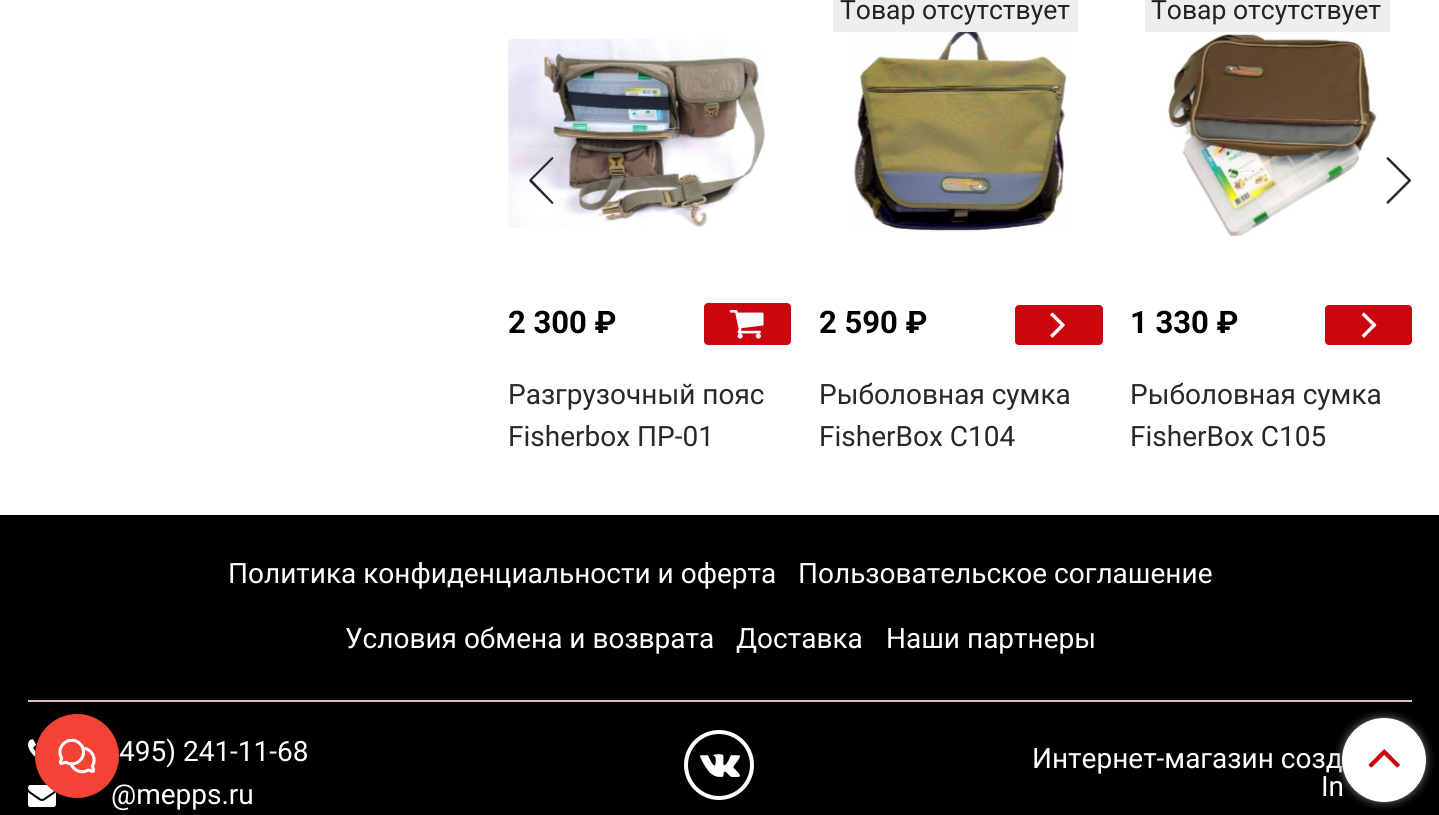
import math
import cairo

surface = cairo.ImageSurface(cairo.FORMAT_RGB24, 1439, 815)
c = cairo.Context(surface)
options = cairo.FontOptions()
options.set_hint_metrics(cairo.HINT_METRICS_OFF)
options.set_hint_style(cairo.HINT_STYLE_NONE)
c.set_font_options(options)
c.set_miter_limit(4)
def C(code):
 c.set_source_rgb(*(v / 255 for v in bytes.fromhex(code[-6:])))
def F(family, size, italic, bold):
 c.select_font_face(family, cairo.FONT_SLANT_ITALIC if italic else cairo.FONT_SLANT_NORMAL, cairo.FONT_WEIGHT_BOLD if bold else cairo.FONT_WEIGHT_NORMAL)
 c.set_font_size(size)
def T(x, y, s):
 c.move_to(x, y)
 c.show_text(s)
def R(x, y, w, h):
 c.rectangle(x, y, w, h)
 c.fill()
def Q(x, y, w, h, r):
 c.new_sub_path()
 for i, (u, v) in enumerate([(x + w - r, y + h - r), (x + r, y + h - r), (x + r, y + r), (x + w - r, y + r)]):
  c.arc(u, v, r, i * math.pi / 2, (i + 1) * math.pi / 2)
 c.close_path()
def S(x, y, w, h, r, blur, alpha):
 c.push_group_with_content(cairo.CONTENT_ALPHA)
 c.set_operator(cairo.OPERATOR_SOURCE)
 for i in range(15, -16, -2):
  e = blur * i / 6
  if min(w, h) + 2 * e > 0:
   c.set_source_rgba(0, 0, 0, alpha * math.erfc((i - 1) / 8.5) / 2)
   Q(x - e, y - e, w + 2 * e, h + 2 * e, max(0, min(r + e + blur * .6, min(w, h) / 2 + e)))
   c.fill()
 c.mask(c.pop_group())
def I(path, x, y, w, h):
 c.save()
 c.set_source_surface(cairo.ImageSurface.create_from_png(path), x, y)
 c.rectangle(x, y, w, h)
 c.fill()
 c.restore()
C('ffffff')
c.paint()
C('000000')
R(0,515,1439,300)
I('9.png',28,739,8,19)
I('10.png',28,785,28,22)
F('Roboto',28,0,0)
C('ffffff')
T(111,804,'@mepps.ru')
C('f44236')
c.new_path()
c.arc(77,756,42,0,2 * math.pi)
c.fill()
I('1.png',58,738,38,36)
I('2.png',508,38,257,190)
F('Roboto',31,0,1)
C('000000')
T(508,333,'2 300 ₽')
C('ca070f')
Q(704,303,87,42,4)
c.fill()
I('3.png',729,310,35,29)
F('Roboto',28,0,0)
C('282828')
T(508,404,'Разгрузочный пояс')
T(508,446,'Fisherbox ПР-01')
C('eeeeee')
R(833,0,245,32)
F('Roboto',26.5,0,0)
C('222222')
T(840,19,'Товар отсутствует')
I('4.png',854,32,213,200)
F('Roboto',31,0,1)
C('000000')
T(819,333,'2 590 ₽')
C('ca070f')
Q(1015,305,88,40,4)
c.fill()
I('5.png',1050,312,15,26)
F('Roboto',28,0,0)
C('282828')
T(819,404,'Рыболовная сумка')
T(819,446,'FisherBox C104')
C('eeeeee')
R(1145,0,245,32)
F('Roboto',26.5,0,0)
C('222222')
T(1151,19,'Товар отсутствует')
I('6.png',1167,32,212,206)
F('Roboto',31,0,1)
C('000000')
T(1130,333,'1 330 ₽')
C('ca070f')
Q(1325,305,87,40,4)
c.fill()
I('7.png',1361,312,16,26)
F('Roboto',28,0,0)
C('282828')
T(1130,404,'Рыболовная сумка')
T(1130,446,'FisherBox C105')
c.new_path()
c.move_to(552,204)
c.curve_to(553,204,554,203,553,202)
c.line_to(532,180)
c.line_to(553,159)
c.curve_to(554,158,553,156,551,158)
c.line_to(533,176)
c.curve_to(528,181,528,180,533,185)
c.close_path()
c.fill()
I('8.png',1386,157,25,47)
C('ebbac7')
R(28,700,1384,2)
C('ffffff')
T(228,583,'Политика конфиденциальности и оферта')
T(798,583,'Пользовательское соглашение')
T(345,648,'Условия обмена и возврата')
T(736,648,'Доставка')
T(886,648,'Наши партнеры')
T(119,761,'495) 241-11-68')
c.new_path()
c.arc(719,765,33,0,2 * math.pi)
c.set_line_width(4)
c.stroke()
I('11.png',700,754,40,23)
T(1032,768,'Интернет-магазин созд')
T(1321,796,'In')
C('777777')
S(1342,718,84,84,42,4.5,1)
C('ffffff')
c.arc(1384,760,42,0,2 * math.pi)
c.fill()
I('12.png',1368,749,32,19)
surface.write_to_png('o.png')
